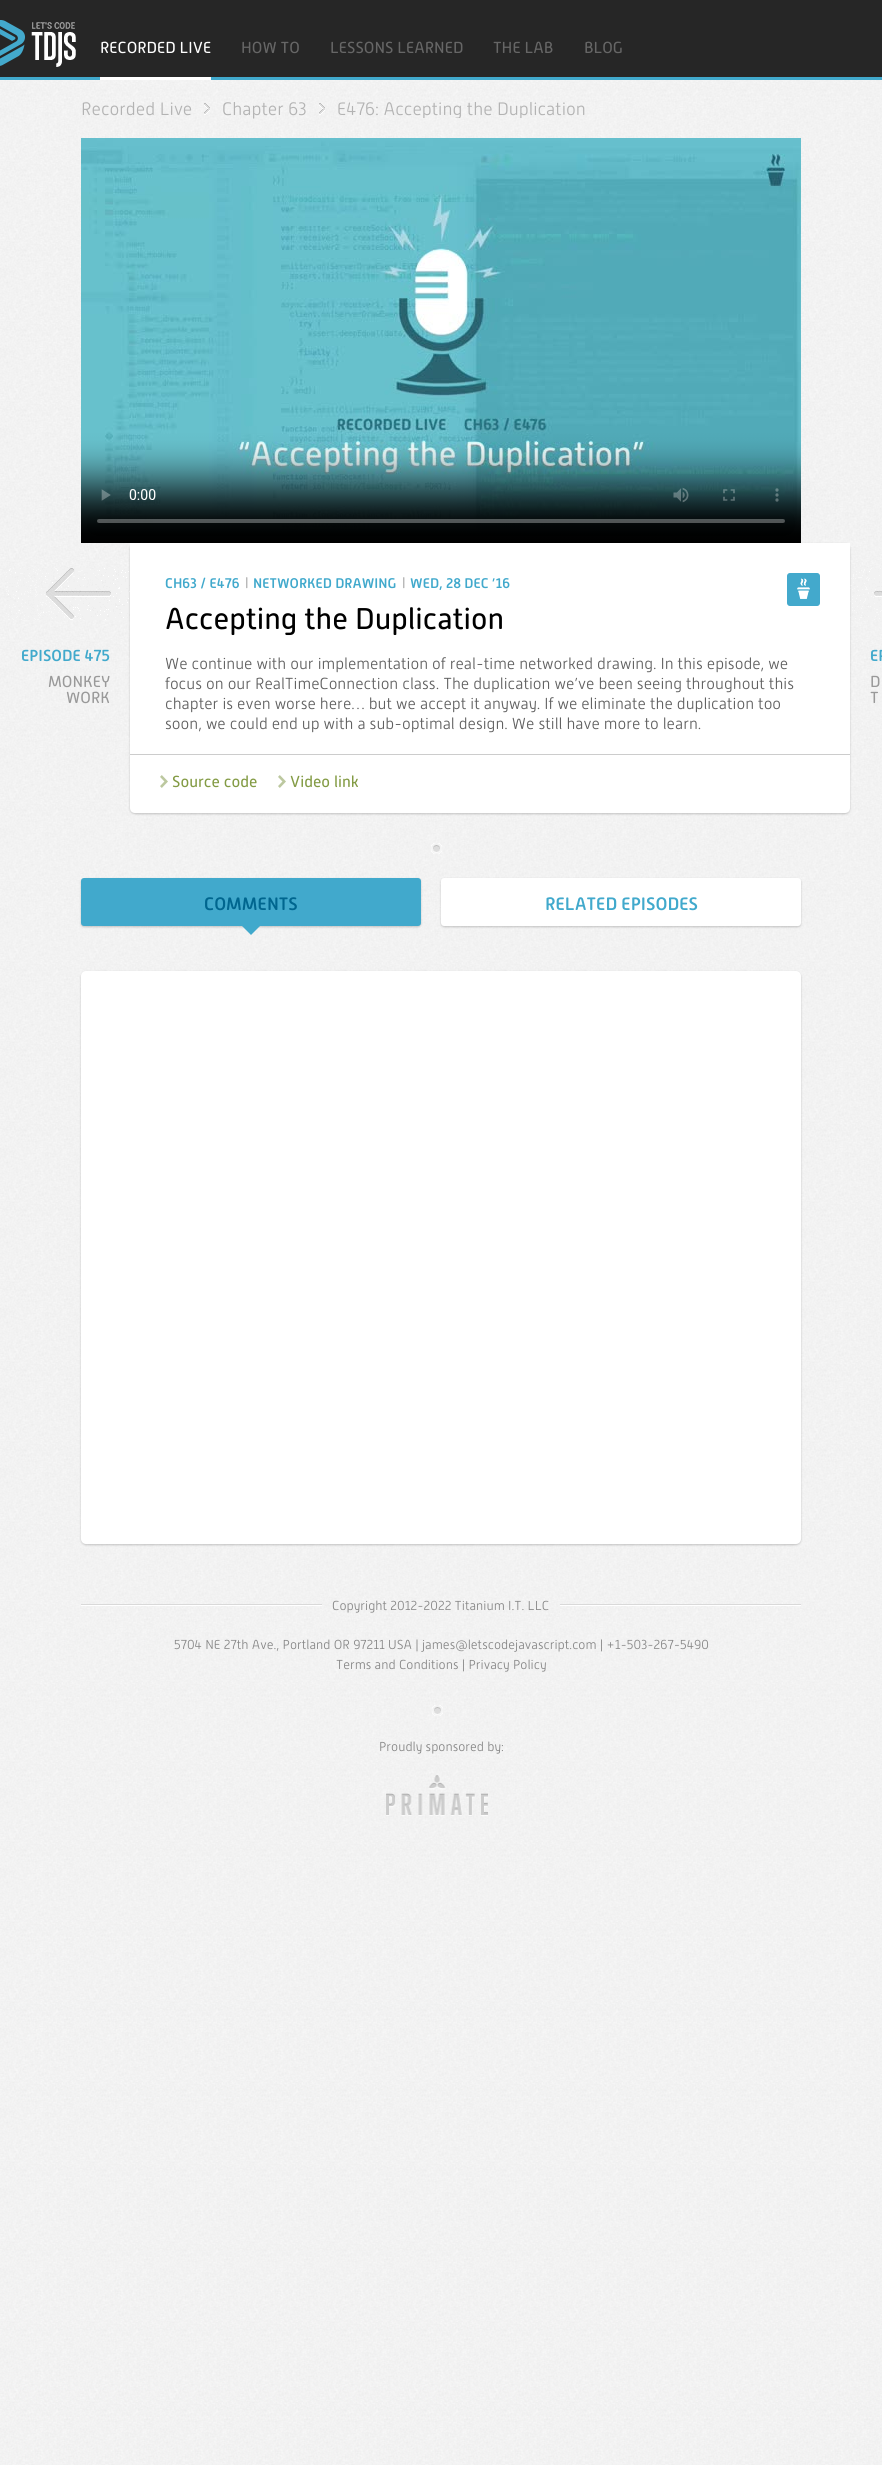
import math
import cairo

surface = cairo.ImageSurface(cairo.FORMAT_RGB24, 882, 2465)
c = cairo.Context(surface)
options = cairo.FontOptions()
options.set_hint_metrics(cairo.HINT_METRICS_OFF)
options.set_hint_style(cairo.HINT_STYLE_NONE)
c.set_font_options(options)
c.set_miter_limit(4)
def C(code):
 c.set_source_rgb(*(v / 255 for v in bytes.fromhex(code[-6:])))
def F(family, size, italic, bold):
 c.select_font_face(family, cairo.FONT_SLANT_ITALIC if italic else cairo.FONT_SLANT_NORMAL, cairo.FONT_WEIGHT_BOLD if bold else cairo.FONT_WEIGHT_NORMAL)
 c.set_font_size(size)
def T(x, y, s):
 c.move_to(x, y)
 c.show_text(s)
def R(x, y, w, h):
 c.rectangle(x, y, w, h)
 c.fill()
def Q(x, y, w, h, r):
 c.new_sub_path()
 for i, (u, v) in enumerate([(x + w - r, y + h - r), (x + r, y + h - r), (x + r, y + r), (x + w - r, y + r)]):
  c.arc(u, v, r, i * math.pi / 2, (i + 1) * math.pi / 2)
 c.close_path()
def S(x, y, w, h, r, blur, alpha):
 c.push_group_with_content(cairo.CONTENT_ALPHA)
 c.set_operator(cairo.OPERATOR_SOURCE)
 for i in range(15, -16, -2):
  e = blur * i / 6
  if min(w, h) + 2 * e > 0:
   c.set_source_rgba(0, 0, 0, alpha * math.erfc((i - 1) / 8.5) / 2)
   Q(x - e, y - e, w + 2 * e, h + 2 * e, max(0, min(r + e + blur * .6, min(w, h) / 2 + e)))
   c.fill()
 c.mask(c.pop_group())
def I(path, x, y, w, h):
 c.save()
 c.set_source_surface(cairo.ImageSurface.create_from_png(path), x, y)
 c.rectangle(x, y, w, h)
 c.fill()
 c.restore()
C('ffffff')
c.paint()
I('1.png',0,80,882,2385)
C('262626')
R(0,0,882,77)
C('41a9cc')
R(0,77,882,3)
I('2.png',0,20,76,47)
C('ffffff')
R(100,77,111,3)
F('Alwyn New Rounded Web',16,0,0)
T(100,53,'RECORDED LIVE')
C('666666')
T(241,53,'HOW TO')
T(330,53,'LESSONS LEARNED')
T(493,53,'THE LAB')
T(584,53,'BLOG')
I('3.png',204,103,6,12)
F('Alwyn New Rounded Web Light',18,0,0)
C('b3b3b3')
T(81,115,'Recorded Live')
I('3.png',319,103,6,12)
T(222,115,'Chapter 63')
c.save()
c.rectangle(81,100,720,18)
c.clip()
T(337,115,'E476: Accepting the Duplication')
c.restore()
I('4.png',81,138,720,405)
I('5.png',6,568,124,52)
F('Alwyn New Rounded Web Medium',16,0,0)
C('41a9cc')
T(21,661,'EPISODE 475')
F('Alwyn New Rounded Web',16,0,0)
C('999999')
T(48,687,'MONKEY')
T(66,703,'WORK')
I('8.png',850,568,32,52)
C('000000')
S(130,544,720,270,5,1,.2)
C('ffffff')
c.new_path()
c.move_to(130,543)
c.line_to(850,543)
c.line_to(850,808)
c.curve_to(850,811,848,813,845,813)
c.line_to(135,813)
c.curve_to(132,813,130,811,130,808)
c.close_path()
c.fill()
F('Alwyn New Rounded Web Medium',14,0,0)
C('41a9cc')
T(165,588,'CH63 / E476')
F('Alwyn New Rounded Web Medium',12,0,0)
C('b3b3b3')
T(245,586,'|')
F('Alwyn New Rounded Web Medium',14,0,0)
C('41a9cc')
T(253,588,'NETWORKED DRAWING')
F('Alwyn New Rounded Web Medium',12,0,0)
C('b3b3b3')
T(402,586,'|')
F('Alwyn New Rounded Web Medium',14,0,0)
C('41a9cc')
T(410,588,'WED, 28 DEC ’16')
F('Alwyn New Rounded Web',30,0,0)
C('000000')
T(165,629,'Accepting the Duplication')
F('Alwyn New Rounded Web Light',16,0,0)
C('606060')
T(165,669,'We continue with our implementation of real-time networked drawing. In this episode, we')
T(165,689,'focus on our RealTimeConnection class. The duplication we’ve been seeing throughout this')
T(165,709,'chapter is even worse here… but we accept it anyway. If we eliminate the duplication too')
T(165,729,'soon, we could end up with a sub-optimal design. We still have more to learn.')
I('6.png',787,573,33,33)
C('cccccc')
R(130,754,720,1)
I('7.png',160,775,8,13)
F('Alwyn New Rounded Web',16,0,0)
C('839b44')
T(172,787,'Source code')
I('7.png',278,775,8,13)
T(290,787,'Video link')
F('Alwyn New Rounded Web Medium',16,0,0)
C('41a9cc')
T(870,661,'EP')
F('Alwyn New Rounded Web',16,0,0)
C('999999')
T(870,687,'D')
T(870,703,'T')
I('9.png',431,843,11,11)
C('000000')
S(81,879,340,48,3,1,.2)
C('41a9cc')
Q(81,878,340,48,3)
c.fill()
F('Alwyn New Rounded Web Medium',18,0,0)
C('00668f')
T(204,910,'COMMENTS')
C('41a9cc')
c.new_path()
c.move_to(231,915)
c.line_to(271,915)
c.line_to(251,935)
c.close_path()
c.fill()
C('000000')
S(441,879,360,48,3,1,.2)
C('ffffff')
Q(441,878,360,48,3)
c.fill()
C('41a9cc')
T(545,910,'RELATED EPISODES')
C('000000')
S(81,972,720,573,5,1,.2)
C('ffffff')
Q(81,971,720,573,5)
c.fill()
R(81,1605,720,1)
C('d9d9d9')
R(81,1604,720,1)
I('10.png',322,1596,238,20)
F('Alwyn New Rounded Web Light',13,0,0)
C('868686')
T(332,1610,'Copyright 2012-2022 Titanium I.T. LLC')
T(174,1649,'5704 NE 27th Ave., Portland OR 97211 USA | james@letscodejavascript.com | +1-503-267-5490')
T(336,1669,'Terms and Conditions | Privacy Policy')
I('11.png',432,1705,11,11)
I('12.png',369,1737,144,20)
T(379,1751,'Proudly sponsored by:')
I('13.png',386,1775,102,41)
surface.write_to_png('o.png')
